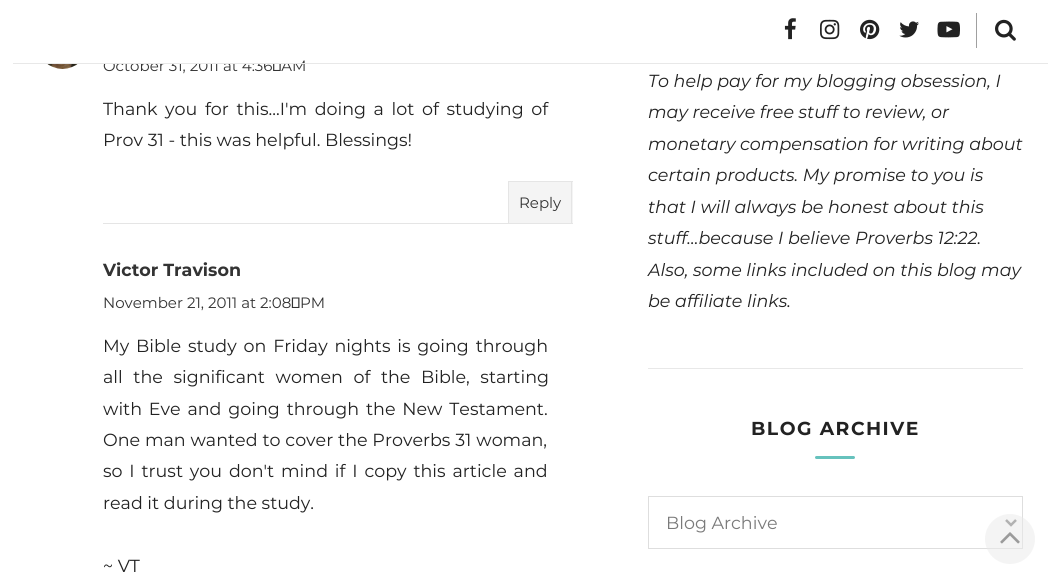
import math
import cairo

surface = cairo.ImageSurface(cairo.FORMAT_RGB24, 1060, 588)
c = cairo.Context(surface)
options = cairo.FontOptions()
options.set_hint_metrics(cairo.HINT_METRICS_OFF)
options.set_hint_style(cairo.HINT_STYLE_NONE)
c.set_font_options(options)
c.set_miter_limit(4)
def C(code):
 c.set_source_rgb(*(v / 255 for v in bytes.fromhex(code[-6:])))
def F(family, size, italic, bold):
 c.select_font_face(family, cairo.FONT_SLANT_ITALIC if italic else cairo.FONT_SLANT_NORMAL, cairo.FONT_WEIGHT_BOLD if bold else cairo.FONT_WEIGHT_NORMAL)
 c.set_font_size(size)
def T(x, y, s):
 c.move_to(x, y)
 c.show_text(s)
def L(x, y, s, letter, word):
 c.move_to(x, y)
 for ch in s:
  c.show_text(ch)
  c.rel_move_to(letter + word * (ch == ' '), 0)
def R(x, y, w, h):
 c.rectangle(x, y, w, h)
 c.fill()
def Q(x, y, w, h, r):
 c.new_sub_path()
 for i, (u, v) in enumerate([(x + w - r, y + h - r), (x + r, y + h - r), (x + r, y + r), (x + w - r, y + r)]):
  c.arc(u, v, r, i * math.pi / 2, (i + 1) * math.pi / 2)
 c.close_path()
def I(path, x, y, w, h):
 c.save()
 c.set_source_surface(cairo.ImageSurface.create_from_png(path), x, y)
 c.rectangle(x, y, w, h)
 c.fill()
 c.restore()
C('ffffff')
c.paint()
F('Montserrat Thin',15,0,0)
C('333333')
T(103,71,'October 31, 2011 at 4:36 AM')
C('ffffff')
R(104,59,194,4)
C('e8e8e8')
R(13,63,1035,1)
I('1.png',784,18,12,22)
I('2.png',820,19,20,21)
I('3.png',860,19,20,21)
I('4.png',899,21,20,17)
C('a0a0a0')
R(976,13,1,35)
I('5.png',937,21,23,17)
I('6.png',995,19,21,22)
I('7.png',47,64,31,5)
C('e5e5e5')
R(103,223,470,1)
F('Montserrat Thin',17.5,0,0)
C('222222')
L(103,115,'Thank you for this...I\'m doing a lot of studying of',0,3)
T(103,146,'Prov 31 - this was helpful. Blessings!')
C('f4f4f4')
R(509,182,64,41)
C('e5e5e5')
R(508,181,65,1)
R(571,181,1,42)
R(508,181,1,42)
F('Montserrat Thin',15,0,0)
C('333333')
T(519,208,'Reply')
F('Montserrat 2 Thin',17.5,0,0)
T(103,276,'Victor Travison')
F('Montserrat Thin',15,0,0)
T(103,308,'November 21, 2011 at 2:08 PM')
F('Montserrat Thin',17.5,0,0)
C('222222')
L(103,352,'My Bible study on Friday nights is going through',0,2.25)
L(103,383,'all the significant women of the Bible, starting',0,6)
L(103,415,'with Eve and going through the New Testament.',0,2.25)
L(103,446,'One man wanted to cover the Proverbs 31 woman,',0,.25)
L(103,477,'so I trust you don\'t mind if I copy this article and',0,2.25)
T(103,509,'read it during the study.')
T(103,572,'~ VT')
C('e8e8e8')
R(648,368,375,1)
F('Montserrat',17.5,1,0)
C('222222')
T(648,87,'To help pay for my blogging obsession, I')
T(648,118,'may receive free stuff to review, or')
T(648,150,'monetary compensation for writing about')
T(648,181,'certain products. My promise to you is')
T(648,213,'that I will always be honest about this')
T(648,244,'stuff...because I believe Proverbs 12:22.')
T(648,276,'Also, some links included on this blog may')
T(648,307,'be affiliate links.')
F('Montserrat 2 Thin',18.75,0,0)
L(751,435,'BLOG ARCHIVE',1.5,0)
C('66c2bd')
Q(815,456,40,3,1.5)
c.fill()
c.rectangle(648.5,496.5,374,52)
C('dedede')
c.set_line_width(1)
c.stroke()
c.new_path()
c.move_to(1006,520)
c.line_to(1011,525)
c.line_to(1016,520)
C('7a7a7a')
c.set_line_width(2.5)
c.stroke()
F('Montserrat Thin',17.5,0,0)
T(666,529,'Blog Archive')
c.set_source_rgba(0.918,0.918,0.918,0.5)
c.new_path()
c.arc(1010,539,25,0,2 * math.pi)
c.fill()
I('8.png',1000,532,20,12)
surface.write_to_png('o.png')
